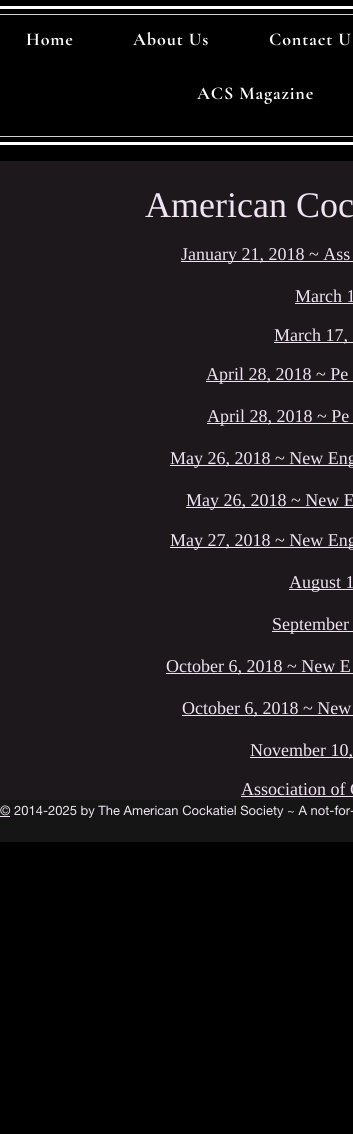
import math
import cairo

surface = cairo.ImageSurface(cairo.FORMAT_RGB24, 353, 1134)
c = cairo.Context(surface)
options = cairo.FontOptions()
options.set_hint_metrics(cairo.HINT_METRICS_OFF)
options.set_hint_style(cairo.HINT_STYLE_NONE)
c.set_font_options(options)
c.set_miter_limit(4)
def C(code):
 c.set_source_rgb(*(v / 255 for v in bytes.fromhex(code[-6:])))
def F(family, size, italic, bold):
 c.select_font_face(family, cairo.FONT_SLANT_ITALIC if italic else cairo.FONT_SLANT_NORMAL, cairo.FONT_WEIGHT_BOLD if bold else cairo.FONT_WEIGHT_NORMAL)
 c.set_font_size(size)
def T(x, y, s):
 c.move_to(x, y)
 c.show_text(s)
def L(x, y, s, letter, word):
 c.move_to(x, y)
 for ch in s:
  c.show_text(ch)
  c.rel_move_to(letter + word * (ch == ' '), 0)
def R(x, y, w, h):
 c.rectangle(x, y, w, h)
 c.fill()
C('000000')
c.paint()
C('ffffff')
R(0,6,353,3)
R(0,142,353,3)
C('d1d1d1')
R(0,14,353,1)
R(0,136,353,1)
F('Cormorant Garamond',18,0,1)
C('ffffff')
L(26,45,'Home',.9,0)
L(133,45,'About Us',.9,0)
L(269,45,'Contact U',.9,0)
L(197,99,'ACS Magazine',.9,0)
C('1c181c')
R(0,161,353,639)
F('Liberation Serif',36,0,0)
C('f0e4f2')
T(145,217,'American Coc')
R(181,261,172,1)
F('Liberation Serif',18,0,0)
T(181,260,'January 21, 2018 ~ Ass')
T(295,302,'March 1')
R(295,303,58,1)
R(274,342,79,1)
T(274,341,'March 17,')
R(206,381,147,1)
T(206,380,'April 28, 2018 ~ Pe')
R(207,423,146,1)
T(207,422,'April 28, 2018 ~ Pe')
R(170,465,183,1)
T(170,464,'May 26, 2018 ~ New Eng')
R(186,507,167,1)
T(186,506,'May 26, 2018 ~ New E')
R(170,547,183,1)
T(170,546,'May 27, 2018 ~ New Eng')
R(289,589,64,1)
T(289,588,'August 1')
R(272,631,81,1)
T(272,630,'September')
R(166,673,187,1)
T(166,672,'October 6, 2018 ~ New E')
R(182,715,171,1)
T(182,714,'October 6, 2018 ~ New')
R(250,757,103,1)
T(250,756,'November 10,')
T(241,795,'Association of C')
R(241,796,112,1)
C('151515')
R(0,800,353,42)
C('f0e4f2')
R(0,816,10,1)
F('helvetica neue',13,0,0)
T(0,815,'© 2014-2025 by The American Cockatiel Society ~ A not-for-')
surface.write_to_png('o.png')
